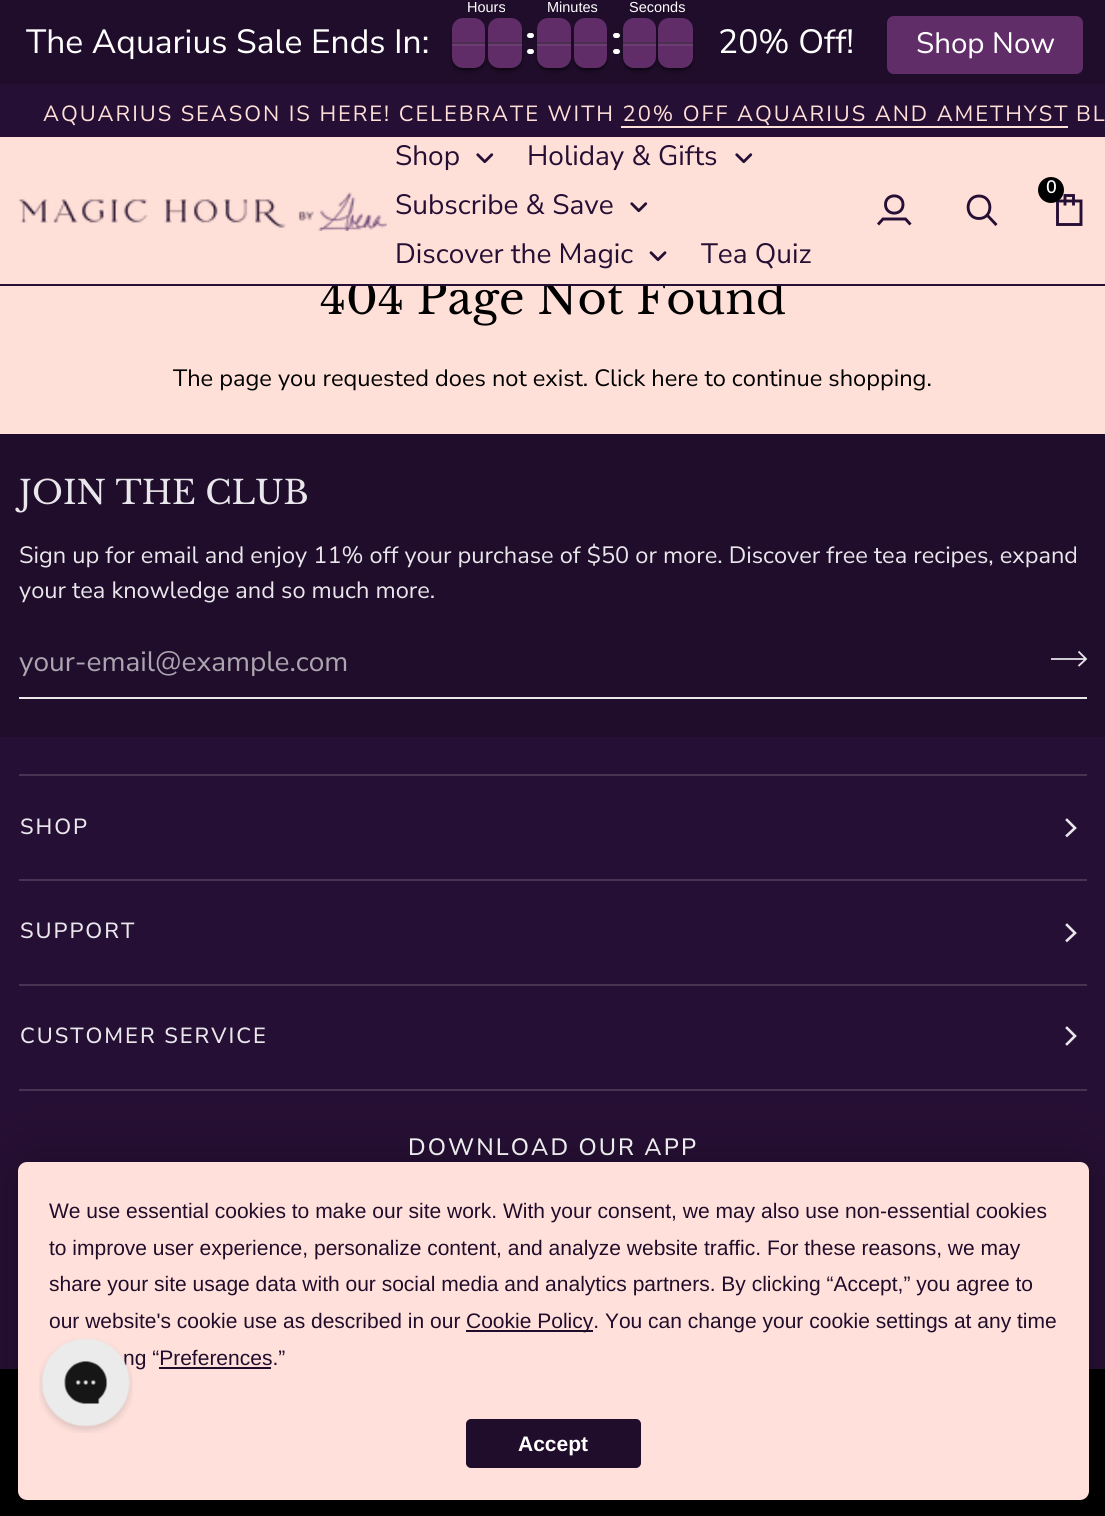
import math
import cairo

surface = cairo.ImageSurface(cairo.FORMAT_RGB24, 1105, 1516)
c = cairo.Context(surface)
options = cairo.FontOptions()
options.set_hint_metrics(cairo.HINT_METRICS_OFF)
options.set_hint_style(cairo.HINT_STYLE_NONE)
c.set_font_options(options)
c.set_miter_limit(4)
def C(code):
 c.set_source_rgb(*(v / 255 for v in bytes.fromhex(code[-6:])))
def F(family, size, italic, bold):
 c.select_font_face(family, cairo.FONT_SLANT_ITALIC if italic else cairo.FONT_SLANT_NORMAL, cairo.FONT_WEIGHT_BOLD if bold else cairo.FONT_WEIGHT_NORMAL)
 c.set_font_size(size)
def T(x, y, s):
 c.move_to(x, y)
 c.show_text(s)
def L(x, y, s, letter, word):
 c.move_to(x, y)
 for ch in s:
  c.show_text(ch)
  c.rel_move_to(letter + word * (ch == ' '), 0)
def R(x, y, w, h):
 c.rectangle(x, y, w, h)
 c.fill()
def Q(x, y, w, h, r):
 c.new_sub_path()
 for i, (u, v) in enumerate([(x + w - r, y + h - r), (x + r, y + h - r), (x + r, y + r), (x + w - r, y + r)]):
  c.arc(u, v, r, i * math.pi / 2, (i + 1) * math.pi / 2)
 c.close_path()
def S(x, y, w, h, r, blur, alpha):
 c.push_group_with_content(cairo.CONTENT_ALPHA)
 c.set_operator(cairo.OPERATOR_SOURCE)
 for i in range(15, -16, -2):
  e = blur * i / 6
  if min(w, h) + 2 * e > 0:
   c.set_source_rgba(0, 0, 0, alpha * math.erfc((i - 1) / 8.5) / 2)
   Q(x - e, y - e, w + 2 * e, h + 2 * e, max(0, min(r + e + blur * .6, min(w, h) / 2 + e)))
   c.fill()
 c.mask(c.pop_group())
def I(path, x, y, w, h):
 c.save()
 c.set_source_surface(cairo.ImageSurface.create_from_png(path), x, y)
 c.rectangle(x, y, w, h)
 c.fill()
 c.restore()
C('ffe0d8')
c.paint()
C('200d2b')
R(0,0,1105,84)
C('000000')
S(452,21,33,51,11,2.5,.24)
S(488,21,34,51,11,2.5,.24)
F('Liberation Sans',14.5,0,0)
C('ffffff')
T(467,12,'Hours')
C('000000')
S(452,46,33,24,11,1,.4)
S(488,46,34,24,11,1,.4)
C('612d69')
c.new_path()
c.move_to(463,18)
c.line_to(474,18)
c.curve_to(480,18,485,23,485,29)
c.line_to(485,44)
c.line_to(452,44)
c.line_to(452,29)
c.curve_to(452,23,457,18,463,18)
c.close_path()
c.fill()
c.set_source_rgba(0.2,0.2,0.2,0.4)
R(452,42,33,2)
C('612d69')
c.new_path()
c.move_to(452,44)
c.line_to(485,44)
c.line_to(485,57)
c.curve_to(485,63,480,68,474,68)
c.line_to(463,68)
c.curve_to(457,68,452,63,452,57)
c.close_path()
c.fill()
c.set_source_rgba(0.8,0.8,0.8,0.1)
R(452,44,33,2)
C('612d69')
c.new_path()
c.move_to(499,18)
c.line_to(511,18)
c.curve_to(517,18,522,23,522,29)
c.line_to(522,44)
c.line_to(488,44)
c.line_to(488,29)
c.curve_to(488,23,493,18,499,18)
c.close_path()
c.fill()
c.set_source_rgba(0.2,0.2,0.2,0.4)
R(488,42,34,2)
C('612d69')
c.new_path()
c.move_to(488,44)
c.line_to(522,44)
c.line_to(522,57)
c.curve_to(522,63,517,68,511,68)
c.line_to(499,68)
c.curve_to(493,68,488,63,488,57)
c.close_path()
c.fill()
c.set_source_rgba(0.8,0.8,0.8,0.1)
R(488,44,34,2)
C('ffffff')
Q(527,33,7,5,2.5)
c.fill()
Q(527,49,7,5,2.5)
c.fill()
C('000000')
S(537,21,34,51,11,2.5,.24)
S(574,21,33,51,11,2.5,.24)
C('ffffff')
T(547,12,'Minutes')
C('000000')
S(537,46,34,24,11,1,.4)
S(574,46,33,24,11,1,.4)
C('612d69')
c.new_path()
c.move_to(548,18)
c.line_to(560,18)
c.curve_to(566,18,571,23,571,29)
c.line_to(571,44)
c.line_to(537,44)
c.line_to(537,29)
c.curve_to(537,23,542,18,548,18)
c.close_path()
c.fill()
c.set_source_rgba(0.2,0.2,0.2,0.4)
R(537,42,34,2)
C('612d69')
c.new_path()
c.move_to(537,44)
c.line_to(571,44)
c.line_to(571,57)
c.curve_to(571,63,566,68,560,68)
c.line_to(548,68)
c.curve_to(542,68,537,63,537,57)
c.close_path()
c.fill()
c.set_source_rgba(0.8,0.8,0.8,0.1)
R(537,44,34,2)
C('612d69')
c.new_path()
c.move_to(585,18)
c.line_to(596,18)
c.curve_to(602,18,607,23,607,29)
c.line_to(607,44)
c.line_to(574,44)
c.line_to(574,29)
c.curve_to(574,23,579,18,585,18)
c.close_path()
c.fill()
c.set_source_rgba(0.2,0.2,0.2,0.4)
R(574,42,33,2)
C('612d69')
c.new_path()
c.move_to(574,44)
c.line_to(607,44)
c.line_to(607,57)
c.curve_to(607,63,602,68,596,68)
c.line_to(585,68)
c.curve_to(579,68,574,63,574,57)
c.close_path()
c.fill()
c.set_source_rgba(0.8,0.8,0.8,0.1)
R(574,44,33,2)
C('ffffff')
Q(613,33,7,5,2.5)
c.fill()
Q(613,49,7,5,2.5)
c.fill()
C('000000')
S(623,21,33,51,11,2.5,.24)
S(658,21,35,51,11,2.5,.24)
C('ffffff')
T(629,12,'Seconds')
C('000000')
S(623,46,33,24,11,1,.4)
S(658,46,35,24,11,1,.4)
C('612d69')
c.new_path()
c.move_to(634,18)
c.line_to(645,18)
c.curve_to(651,18,656,23,656,29)
c.line_to(656,44)
c.line_to(623,44)
c.line_to(623,29)
c.curve_to(623,23,628,18,634,18)
c.close_path()
c.fill()
c.set_source_rgba(0.2,0.2,0.2,0.4)
R(623,42,33,2)
C('612d69')
c.new_path()
c.move_to(623,44)
c.line_to(656,44)
c.line_to(656,57)
c.curve_to(656,63,651,68,645,68)
c.line_to(634,68)
c.curve_to(628,68,623,63,623,57)
c.close_path()
c.fill()
c.set_source_rgba(0.8,0.8,0.8,0.1)
R(623,44,33,2)
C('612d69')
c.new_path()
c.move_to(669,18)
c.line_to(682,18)
c.curve_to(688,18,693,23,693,29)
c.line_to(693,44)
c.line_to(658,44)
c.line_to(658,29)
c.curve_to(658,23,663,18,669,18)
c.close_path()
c.fill()
c.set_source_rgba(0.2,0.2,0.2,0.4)
R(658,42,35,2)
C('612d69')
c.new_path()
c.move_to(658,44)
c.line_to(693,44)
c.line_to(693,57)
c.curve_to(693,63,688,68,682,68)
c.line_to(669,68)
c.curve_to(663,68,658,63,658,57)
c.close_path()
c.fill()
c.set_source_rgba(0.8,0.8,0.8,0.1)
R(658,44,35,2)
F('Nunito Sans',33.6,0,0)
C('ffffff')
T(26,53,'The Aquarius Sale Ends In:')
T(718,53,'20% Off!')
C('612d69')
Q(887,16,196,58,7)
c.fill()
F('Nunito Sans',29.5,0,0)
C('ffffff')
T(916,53,'Shop Now')
C('260f34')
R(0,84,1105,53)
F('Nunito Sans',21.9,0,0)
C('ffe0d8')
L(43,121,'AQUARIUS SEASON IS HERE! CELEBRATE WITH 20% OFF AQUARIUS AND AMETHYST',1.97,0)
L(1076,121,'BL',1.97,0)
R(621,126,447,2)
F('Libre Baskerville',44.6,0,0)
C('000000')
T(320,314,'404 Page Not Found')
C('ffe0d8')
R(333,277,449,7)
C('260f34')
R(0,284,1105,2)
F('Nunito Sans',28,0,0)
T(395,165,'Shop')
I('1.png',476,153,18,11)
T(527,165,'Holiday & Gifts')
I('1.png',735,153,18,11)
T(395,214,'Subscribe & Save')
I('1.png',630,202,18,11)
T(395,263,'Discover the Magic')
I('2.png',649,251,18,11)
T(701,263,'Tea Quiz')
c.new_path()
c.move_to(1057.5,201)
c.line_to(1081,201)
c.line_to(1081,224.5)
c.line_to(1057.5,224.5)
c.close_path()
c.move_to(1065,205.5)
c.line_to(1065,195.5)
c.line_to(1073.5,195.5)
c.line_to(1073.5,205.5)
c.set_line_width(2.9)
c.stroke()
C('000000')
c.arc(1051,190,13,0,2 * math.pi)
c.fill()
F('Nunito Sans SemiBold',18,0,0)
C('ffffff')
T(1046,193,'0')
c.new_path()
c.move_to(878,224.5)
c.line_to(883,219)
c.line_to(905.5,219)
c.line_to(910.5,224.5)
c.move_to(903,204.5)
c.curve_to(903,216,885.5,216,885.5,204.5)
c.curve_to(885.5,193,903,193,903,204.5)
c.close_path()
C('260f34')
c.stroke()
c.new_path()
c.move_to(979,218.5)
c.curve_to(993.5,218.5,993.5,196,979,196)
c.curve_to(964.5,196,964.5,218.5,979,218.5)
c.close_path()
c.move_to(995.5,224)
c.line_to(987.5,215.5)
c.set_line_cap(cairo.LINE_CAP_SQUARE)
c.stroke()
I('3.png',19,192,368,39)
F('Nunito Sans',23.6,0,0)
C('000000')
T(173,386,'The page you requested does not exist. Click here to continue shopping.')
C('200d2b')
R(0,434,1105,303)
F('Libre Baskerville',32.75,0,0)
C('e9e7eb')
T(19,504,'JOIN THE CLUB')
F('Nunito Sans',23.6,0,0)
T(19,563,'Sign up for email and enjoy 11% off your purchase of $50 or more. Discover free tea recipes, expand')
T(19,598,'your tea knowledge and so much more.')
C('e9e7ea')
R(19,697,1068,2)
F('Nunito Sans',28,0,0)
C('aca5b0')
T(19,671,'your-email@example.com')
c.new_path()
c.move_to(1078.5,651.5)
c.line_to(1086,659)
c.line_to(1078.5,666)
c.move_to(1051,659)
c.line_to(1086,659)
C('e9e7ea')
c.set_line_width(1.8)
c.set_line_cap(cairo.LINE_CAP_BUTT)
c.stroke()
C('260f34')
R(0,737,1105,632)
C('473352')
R(19,774,1068,2)
R(19,879,1068,2)
F('Nunito Sans Medium',21.9,0,0)
C('e9e7eb')
L(20,834,'SHOP',1.97,0)
c.new_path()
c.move_to(1067,835.5)
c.line_to(1075,828)
c.line_to(1067,820)
c.set_line_width(2.6)
c.set_line_cap(cairo.LINE_CAP_SQUARE)
c.stroke()
C('473352')
R(19,984,1068,2)
C('e9e7eb')
L(20,938,'SUPPORT',1.97,0)
c.new_path()
c.move_to(1067,940.5)
c.line_to(1075,933)
c.line_to(1067,925)
c.stroke()
C('473352')
R(19,1089,1068,2)
C('e9e7eb')
L(20,1043,'CUSTOMER SERVICE',1.97,0)
c.new_path()
c.move_to(1067,1044)
c.line_to(1075,1036)
c.line_to(1067,1028)
c.stroke()
F('Nunito Sans Medium',23.6,0,0)
C('ffffff')
L(408,1155,'DOWNLOAD OUR APP',2.1,0)
C('000000')
R(0,1369,1105,147)
C('000000')
S(18,1162,1071,338,9,30.5,.25)
C('ffe0db')
Q(18,1162,1071,338,9)
c.fill()
F('Liberation Sans',21,0,0)
C('200d2b')
T(49,1218,'We use essential cookies to make our site work. With your consent, we may also use non-essential cookies')
T(49,1255,'to improve user experience, personalize content, and analyze website traffic. For these reasons, we may')
T(49,1291,'share your site usage data with our social media and analytics partners. By clicking “Accept,” you agree to')
T(49,1328,'our website\'s cookie use as described in our')
R(466,1330,127,2)
T(466,1328,'Cookie Policy. You can change your cookie settings at any time')
T(123,1365,'ng “Preferences.”')
R(159,1367,112,2)
Q(467,1420,173,47,4)
c.fill_preserve()
c.set_line_width(2)
c.set_line_cap(cairo.LINE_CAP_BUTT)
c.stroke()
F('Liberation Sans',21,0,1)
C('ffffff')
T(518,1451,'Accept')
I('4.png',39,1338,94,95)
surface.write_to_png('o.png')
